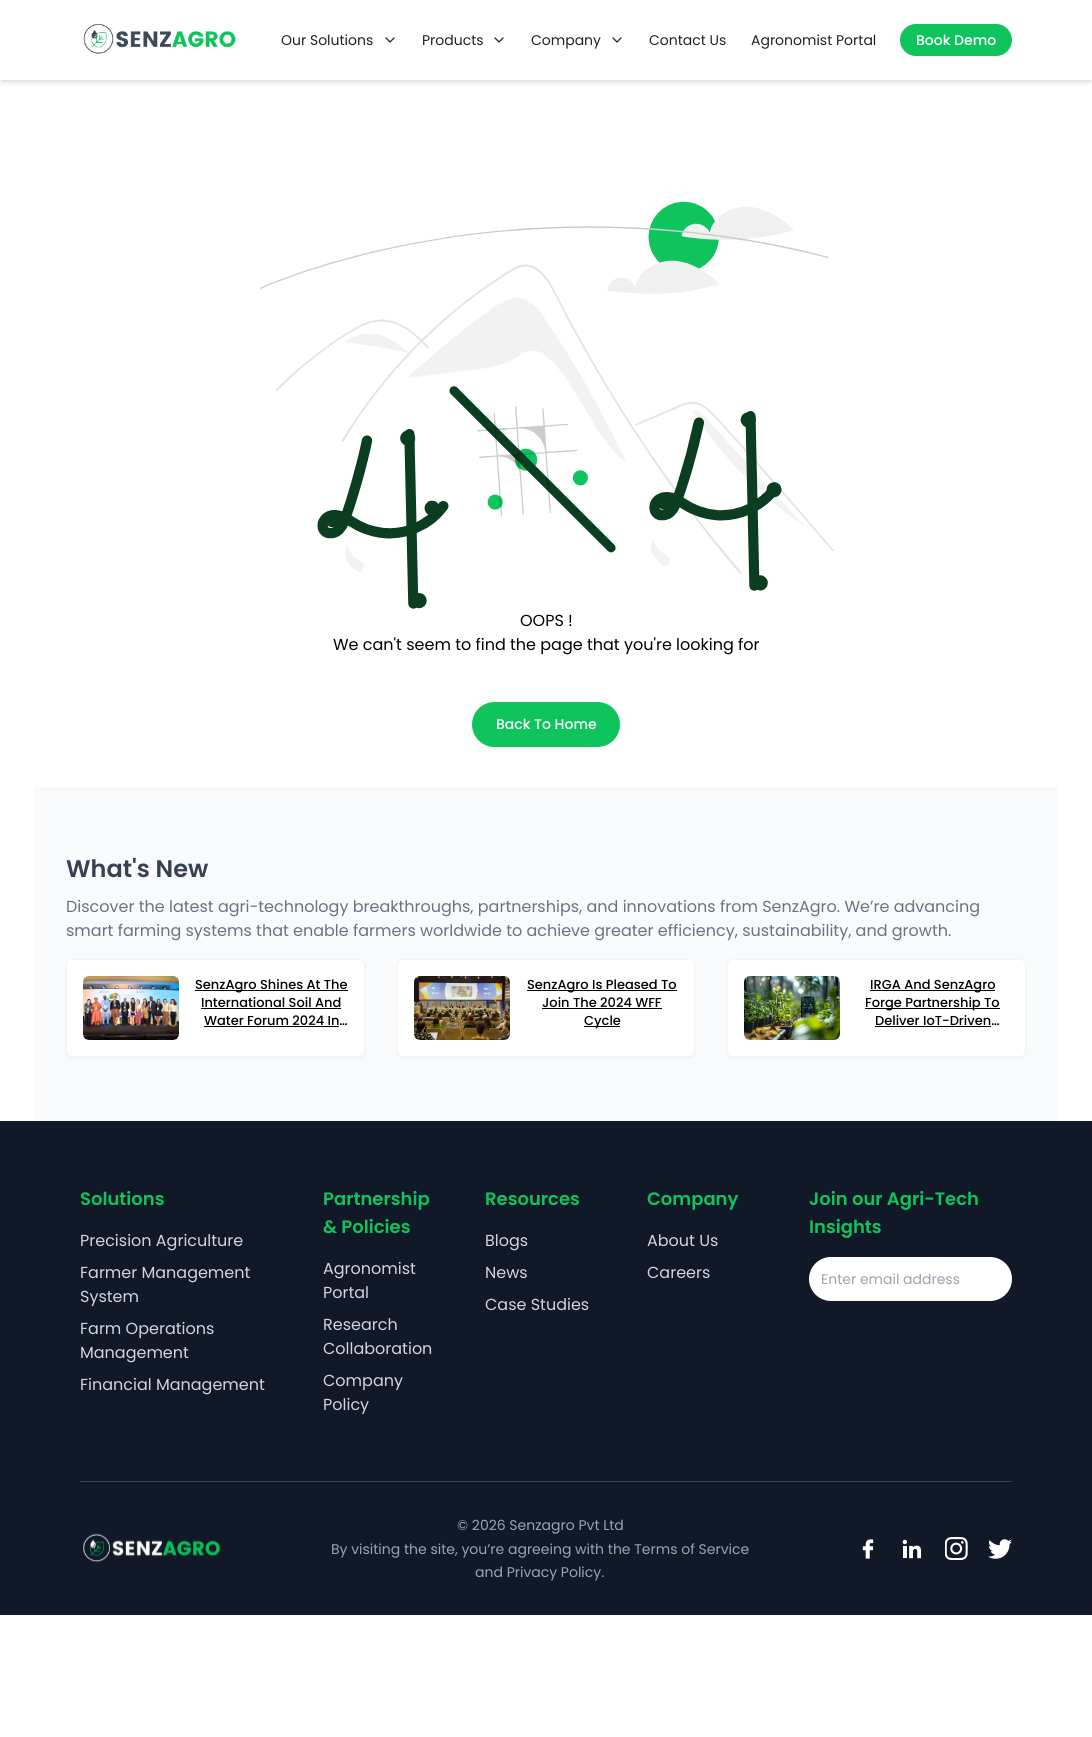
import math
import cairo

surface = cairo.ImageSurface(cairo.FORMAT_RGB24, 1092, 1737)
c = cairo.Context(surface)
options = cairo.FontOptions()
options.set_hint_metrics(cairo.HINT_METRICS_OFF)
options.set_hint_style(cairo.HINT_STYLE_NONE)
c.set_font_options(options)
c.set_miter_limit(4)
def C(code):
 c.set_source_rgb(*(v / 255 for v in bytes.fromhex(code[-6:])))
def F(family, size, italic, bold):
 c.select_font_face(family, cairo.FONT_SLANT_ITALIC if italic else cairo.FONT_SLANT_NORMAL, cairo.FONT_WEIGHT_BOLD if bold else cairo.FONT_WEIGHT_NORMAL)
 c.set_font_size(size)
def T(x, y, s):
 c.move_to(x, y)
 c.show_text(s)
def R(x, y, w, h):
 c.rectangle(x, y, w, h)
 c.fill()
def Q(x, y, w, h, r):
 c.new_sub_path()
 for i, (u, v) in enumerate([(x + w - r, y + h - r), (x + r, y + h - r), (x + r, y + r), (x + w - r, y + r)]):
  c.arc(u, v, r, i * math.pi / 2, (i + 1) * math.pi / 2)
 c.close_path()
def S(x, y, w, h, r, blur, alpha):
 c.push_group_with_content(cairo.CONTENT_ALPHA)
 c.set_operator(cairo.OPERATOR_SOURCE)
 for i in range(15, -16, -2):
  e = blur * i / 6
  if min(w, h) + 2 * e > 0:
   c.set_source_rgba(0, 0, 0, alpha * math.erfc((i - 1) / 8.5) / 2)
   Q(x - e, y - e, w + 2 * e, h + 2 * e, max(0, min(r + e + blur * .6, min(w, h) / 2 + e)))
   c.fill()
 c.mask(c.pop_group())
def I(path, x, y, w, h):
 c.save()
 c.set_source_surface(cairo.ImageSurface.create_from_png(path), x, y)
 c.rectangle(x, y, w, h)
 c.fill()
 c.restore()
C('ffffff')
c.paint()
c.save()
c.rectangle(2,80,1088,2)
c.clip()
C('000000')
S(2,4,1088,76,0,2,.1)
c.restore()
c.save()
c.rectangle(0,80,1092,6)
c.clip()
C('000000')
S(1,5,1090,78,0,3,.1)
c.restore()
I('1.png',83,24,153,30)
F('Poppins',14,0,0)
C('222222')
T(281,45,'Our Solutions')
c.new_path()
c.move_to(386,38)
c.line_to(390,42)
c.line_to(394,38)
c.set_line_width(1.3)
c.set_line_cap(cairo.LINE_CAP_ROUND)
c.set_line_join(cairo.LINE_JOIN_ROUND)
c.stroke()
T(422,45,'Products')
c.new_path()
c.move_to(495,38)
c.line_to(499,42)
c.line_to(503,38)
c.stroke()
T(531,45,'Company')
c.new_path()
c.move_to(613,38)
c.line_to(617,42)
c.line_to(621,38)
c.stroke()
T(649,45,'Contact Us')
T(751,45,'Agronomist Portal')
C('10c45d')
Q(900,24,112,32,16)
c.fill()
F('Poppins Medium',14,0,0)
C('ffffff')
T(916,45,'Book Demo')
I('2.png',260,201,574,408)
F('Poppins',16,0,0)
C('000000')
T(520,626,'OOPS !')
T(333,650,'We can\'t seem to find the page that you\'re looking for')
C('10c45d')
Q(472,702,148,45,22.5)
c.fill()
F('Poppins Medium',14,0,0)
C('ffffff')
T(496,729,'Back To Home')
C('f9fafb')
R(34,787,1024,334)
F('Poppins SemiBold',24,0,0)
C('374151')
T(66,877,'What\'s New')
F('Poppins',16,0,0)
C('6b7280')
T(66,912,'Discover the latest agri-technology breakthroughs, partnerships, and innovations from SenzAgro. We’re advancing')
T(66,936,'smart farming systems that enable farmers worldwide to achieve greater efficiency, sustainability, and growth.')
C('000000')
S(66,960,299,98,6,1,.05)
C('ffffff')
Q(66.5,959.5,298,97,5.5)
c.fill_preserve()
C('f3f4f6')
c.set_line_width(1)
c.set_line_cap(cairo.LINE_CAP_BUTT)
c.set_line_join(cairo.LINE_JOIN_MITER)
c.stroke()
I('3.png',83,976,96,64)
C('000000')
R(195,990,153,1)
F('Poppins Medium',13,0,0)
T(195,989,'SenzAgro Shines At The')
T(201,1007,'International Soil And')
R(201,1008,140,1)
T(204,1025,'Water Forum 2024 In…')
R(204,1026,135,1)
C('000000')
S(397,960,298,98,6,1,.05)
C('ffffff')
Q(397.5,959.5,297,97,5.5)
c.fill_preserve()
C('f3f4f6')
c.stroke()
I('4.png',414,976,96,64)
C('000000')
R(527,990,150,1)
T(527,989,'SenzAgro Is Pleased To')
T(542,1007,'Join The 2024 WFF')
R(542,1008,120,1)
R(584,1026,36,1)
T(584,1025,'Cycle')
C('000000')
S(727,960,299,98,6,1,.05)
C('ffffff')
Q(727.5,959.5,298,97,5.5)
c.fill_preserve()
C('f3f4f6')
c.stroke()
I('5.png',744,976,96,64)
C('000000')
R(870,990,125,1)
T(870,989,'IRGA And SenzAgro')
R(865,1008,135,1)
T(865,1007,'Forge Partnership To')
T(875,1025,'Deliver IoT-Driven…')
R(875,1026,116,1)
C('111827')
R(0,1121,1092,494)
F('Poppins SemiBold',18,0,0)
C('10c45d')
T(80,1205,'Solutions')
F('Poppins',16,0,0)
C('d1d5db')
T(80,1246,'Precision Agriculture')
T(80,1278,'Farmer Management')
T(80,1302,'System')
T(80,1334,'Farm Operations')
T(80,1358,'Management')
T(80,1390,'Financial Management')
F('Poppins SemiBold',18,0,0)
C('10c45d')
T(323,1205,'Partnership')
T(323,1233,'& Policies')
F('Poppins',16,0,0)
C('d1d5db')
T(323,1274,'Agronomist')
T(323,1298,'Portal')
T(323,1330,'Research')
T(323,1354,'Collaboration')
T(323,1386,'Company')
T(323,1410,'Policy')
F('Poppins SemiBold',18,0,0)
C('10c45d')
T(485,1205,'Resources')
F('Poppins',16,0,0)
C('d1d5db')
T(485,1246,'Blogs')
T(485,1278,'News')
T(485,1310,'Case Studies')
F('Poppins SemiBold',18,0,0)
C('10c45d')
T(647,1205,'Company')
F('Poppins',16,0,0)
C('d1d5db')
T(647,1246,'About Us')
T(647,1278,'Careers')
F('Poppins SemiBold',18,0,0)
C('10c45d')
T(809,1205,'Join our Agri-Tech')
T(809,1233,'Insights')
C('ffffff')
Q(809,1257,203,44,22)
c.fill()
F('Poppins',14,0,0)
C('9ca3af')
T(821,1284,'Enter email address')
C('374151')
R(80,1481,932,1)
I('6.png',83,1533,138,30)
C('9ca3af')
T(457,1530,'© 2026 Senzagro Pvt Ltd')
T(331,1554,'By visiting the site, you’re agreeing with the Terms of Service')
T(475,1577,'and Privacy Policy.')
I('7.png',862,1539,12,20)
I('8.png',902,1539,20,20)
I('9.png',945,1537,23,23)
I('10.png',988,1539,24,20)
surface.write_to_png('o.png')
